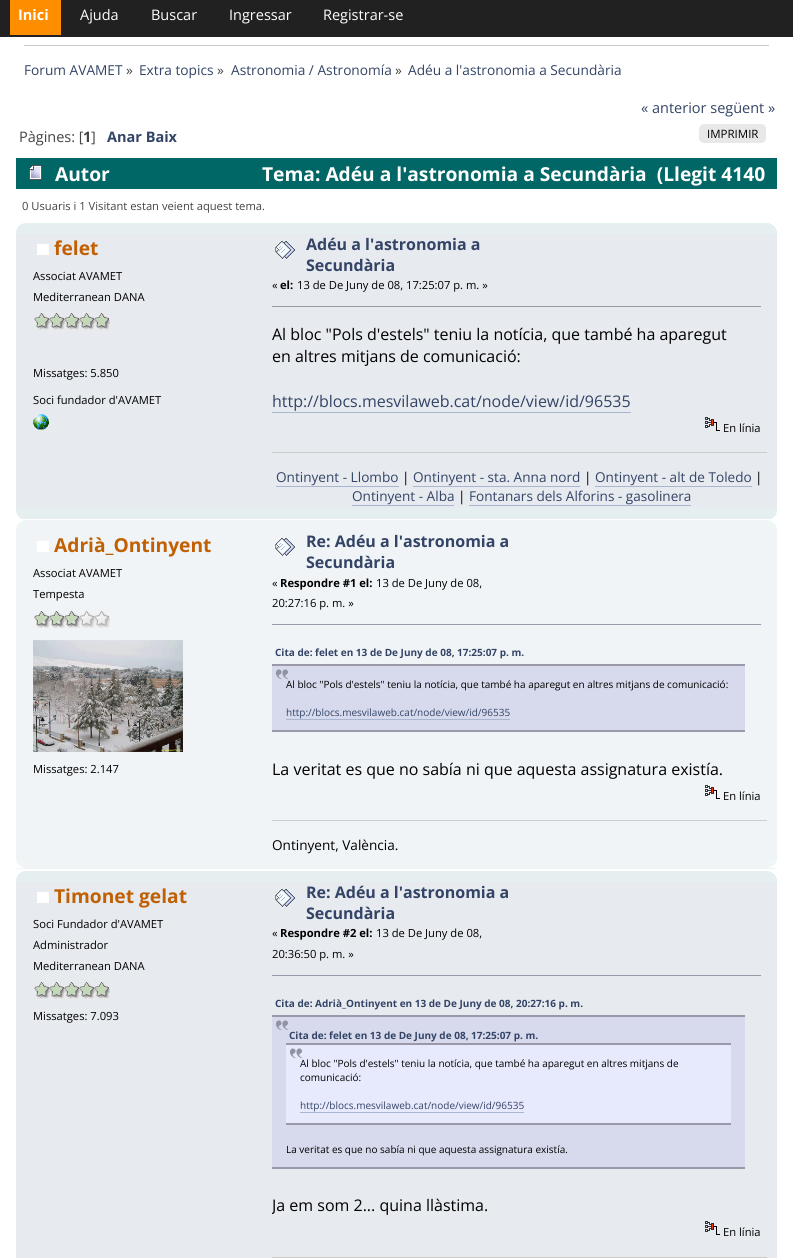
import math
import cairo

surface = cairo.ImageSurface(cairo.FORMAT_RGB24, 793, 1258)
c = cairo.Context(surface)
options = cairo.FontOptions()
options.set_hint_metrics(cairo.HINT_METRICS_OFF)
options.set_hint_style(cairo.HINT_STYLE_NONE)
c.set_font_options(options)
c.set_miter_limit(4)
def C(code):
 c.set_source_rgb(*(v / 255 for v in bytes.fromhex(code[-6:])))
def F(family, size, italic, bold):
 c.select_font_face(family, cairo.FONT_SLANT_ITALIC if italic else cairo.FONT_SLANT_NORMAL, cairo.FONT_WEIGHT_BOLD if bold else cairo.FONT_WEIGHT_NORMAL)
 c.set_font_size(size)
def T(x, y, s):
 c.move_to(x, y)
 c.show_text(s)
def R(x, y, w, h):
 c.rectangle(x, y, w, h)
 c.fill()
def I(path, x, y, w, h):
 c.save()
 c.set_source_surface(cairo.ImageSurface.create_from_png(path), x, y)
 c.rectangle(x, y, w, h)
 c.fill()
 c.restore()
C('ffffff')
c.paint()
C('212121')
R(0,0,793,37)
C('ff8d00')
R(10,0,51,35)
F('Open Sans',14.5,0,1)
C('ffffff')
T(18,20,'Inici')
F('Open Sans',14.5,0,0)
T(80,20,'Ajuda')
T(151,20,'Buscar')
T(229,20,'Ingressar')
T(323,20,'Registrar-se')
C('cccccc')
R(24,45,745,1)
F('Open Sans',13.7,0,0)
C('334466')
T(24,75,'Forum AVAMET')
C('444444')
T(126,75,'»')
C('334466')
T(139,75,'Extra topics')
C('444444')
T(217,75,'»')
C('334466')
T(231,75,'Astronomia / Astronomía')
C('444444')
T(395,75,'»')
C('334466')
T(408,75,'Adéu a l\'astronomia a Secundària')
F('Open Sans',14.5,0,0)
T(641,113,'« anterior següent »')
C('444444')
T(19,142,'Pàgines: [')
F('Open Sans',14.5,0,1)
T(83,142,'1')
F('Open Sans',14.5,0,0)
T(91,142,']')
F('Open Sans',14.5,0,1)
C('334466')
T(107,142,'Anar Baix')
C('e8e8e8')
R(703,124,59,19)
I('1.png',699,124,4,19)
I('2.png',762,124,4,19)
F('Open Sans',11.5,0,0)
C('000000')
T(707,138,'IMPRIMIR')
C('006666')
R(16,158,761,31)
I('3.png',29,165,13,15)
F('Open Sans',19.2,0,1)
C('ffffff')
T(55,181,'Autor')
T(262,181,'Tema: Adéu a l\'astronomia a Secundària  (Llegit 4140')
F('Open Sans',11.2,0,0)
C('444444')
T(22,210,'0 Usuaris i 1 Visitant estan veient aquest tema.')
C('e7eaef')
R(16,234,761,274)
I('4.png',16,223,761,11)
I('5.png',768,223,9,8)
C('ffffff')
R(37,244,12,11)
F('Open Sans',19.2,0,1)
C('c06002')
T(54,255,'felet')
F('Open Sans',11.2,0,0)
C('000000')
T(33,280,'Associat AVAMET')
T(33,301,'Mediterranean DANA')
I('6.png',34,313,76,17)
T(33,377,'Missatges: 5.850')
T(33,404,'Soci fundador d\'AVAMET')
I('7.png',33,414,16,16)
I('8.png',275,241,20,18)
F('Open Sans',16,0,1)
C('334466')
T(306,250,'Adéu a l\'astronomia a')
T(306,271,'Secundària')
F('Open Sans',11.2,0,0)
C('000000')
T(272,289,'«')
F('Open Sans',11.2,0,1)
T(280,289,'el:')
F('Open Sans',11.2,0,0)
T(297,289,'13 de De Juny de 08, 17:25:07 p. m. »')
C('9999aa')
R(272,306,489,1)
F('Open Sans',16,0,0)
C('000000')
T(272,340,'Al bloc "Pols d\'estels" teniu la notícia, que també ha aparegut')
T(272,362,'en altres mitjans de comunicació:')
C('334466')
T(272,407,'http://blocs.mesvilaweb.cat/node/view/id/96535')
C('a8b6cf')
R(272,412,359,1)
I('9.png',705,417,15,14)
F('Open Sans',11.2,0,0)
C('000000')
T(723,432,'En línia')
C('cccccc')
R(272,452,495,1)
F('Open Sans',13.6,0,0)
C('334466')
T(276,482,'Ontinyent - Llombo')
C('a8b6cf')
R(276,486,123,1)
C('000000')
T(402,482,'|')
C('334466')
T(413,482,'Ontinyent - sta. Anna nord')
C('a8b6cf')
R(413,486,167,1)
C('000000')
T(584,482,'|')
C('334466')
T(595,482,'Ontinyent - alt de Toledo')
C('a8b6cf')
R(595,486,157,1)
C('000000')
T(755,482,'|')
C('334466')
T(352,501,'Ontinyent - Alba')
C('a8b6cf')
R(352,505,102,1)
C('000000')
T(458,501,'|')
C('334466')
T(469,501,'Fontanars dels Alforins - gasolinera')
C('a8b6cf')
R(469,505,222,1)
I('10.png',16,508,761,11)
I('11.png',771,511,6,8)
C('f0f4f7')
R(16,520,761,349)
I('12.png',16,520,9,9)
I('13.png',768,520,9,8)
C('ffffff')
R(37,541,12,11)
F('Open Sans',19.2,0,1)
C('c06002')
T(54,552,'Adrià_Ontinyent')
F('Open Sans',11.2,0,0)
C('000000')
T(33,577,'Associat AVAMET')
T(33,598,'Tempesta')
I('14.png',34,611,76,17)
I('15.png',33,640,150,112)
T(33,773,'Missatges: 2.147')
I('16.png',275,538,20,18)
F('Open Sans',16,0,1)
C('334466')
T(306,547,'Re: Adéu a l\'astronomia a')
T(306,568,'Secundària')
F('Open Sans',11.2,0,0)
C('000000')
T(272,587,'«')
F('Open Sans',11.2,0,1)
T(280,587,'Respondre #1 el:')
F('Open Sans',11.2,0,0)
T(376,587,'13 de De Juny de 08,')
T(272,607,'20:27:16 p. m. »')
C('9999aa')
R(272,624,489,1)
F('Open Sans',10,0,1)
C('334466')
T(275,656,'Cita de: felet en 13 de De Juny de 08, 17:25:07 p. m.')
C('d7daec')
R(272,666,473,64)
I('17.png',276,669,13,11)
C('9999aa')
R(272,664,473,2)
R(272,730,473,2)
F('Open Sans',10,0,0)
C('000000')
T(286,688,'Al bloc "Pols d\'estels" teniu la notícia, que també ha aparegut en altres mitjans de comunicació:')
C('334466')
T(286,716,'http://blocs.mesvilaweb.cat/node/view/id/96535')
C('a8b6cf')
R(286,719,224,1)
F('Open Sans',16,0,0)
C('000000')
T(272,775,'La veritat es que no sabía ni que aquesta assignatura existía.')
I('18.png',705,785,15,14)
F('Open Sans',11.2,0,0)
T(723,800,'En línia')
C('cccccc')
R(272,820,495,1)
F('Open Sans',13.6,0,0)
C('000000')
T(272,850,'Ontinyent, València.')
I('19.png',16,859,9,9)
I('20.png',768,859,9,9)
C('e7eaef')
R(16,882,761,376)
I('4.png',16,871,761,11)
I('5.png',768,871,9,8)
C('ffffff')
R(37,892,12,11)
F('Open Sans',19.2,0,1)
C('c06002')
T(54,903,'Timonet gelat')
F('Open Sans',11.2,0,0)
C('000000')
T(33,928,'Soci Fundador d\'AVAMET')
T(33,949,'Administrador')
T(33,970,'Mediterranean DANA')
I('6.png',34,982,76,17)
T(33,1020,'Missatges: 7.093')
I('8.png',275,889,20,18)
F('Open Sans',16,0,1)
C('334466')
T(306,898,'Re: Adéu a l\'astronomia a')
T(306,919,'Secundària')
F('Open Sans',11.2,0,0)
C('000000')
T(272,937,'«')
F('Open Sans',11.2,0,1)
T(280,937,'Respondre #2 el:')
F('Open Sans',11.2,0,0)
T(376,937,'13 de De Juny de 08,')
T(272,958,'20:36:50 p. m. »')
C('9999aa')
R(272,975,489,1)
F('Open Sans',10,0,1)
C('334466')
T(275,1007,'Cita de: Adrià_Ontinyent en 13 de De Juny de 08, 20:27:16 p. m.')
C('d7daec')
R(272,1017,473,150)
I('17.png',276,1020,13,11)
C('9999aa')
R(272,1015,473,2)
R(272,1167,473,2)
C('334466')
T(289,1039,'Cita de: felet en 13 de De Juny de 08, 17:25:07 p. m.')
C('e7eafc')
R(286,1045,445,78)
I('21.png',290,1048,13,11)
C('9999aa')
R(286,1043,445,2)
R(286,1123,445,2)
F('Open Sans',10,0,0)
C('000000')
T(300,1067,'Al bloc "Pols d\'estels" teniu la notícia, que també ha aparegut en altres mitjans de')
T(300,1081,'comunicació:')
C('334466')
T(300,1109,'http://blocs.mesvilaweb.cat/node/view/id/96535')
C('a8b6cf')
R(300,1112,224,1)
C('000000')
T(286,1153,'La veritat es que no sabía ni que aquesta assignatura existía.')
c.save()
c.rectangle(272,973,505,247)
c.clip()
F('Open Sans',16,0,0)
T(272,1211,'Ja em som 2... quina llàstima.')
c.restore()
I('9.png',705,1221,15,14)
F('Open Sans',11.2,0,0)
T(723,1236,'En línia')
C('cccccc')
R(272,1257,495,1)
surface.write_to_png('o.png')
